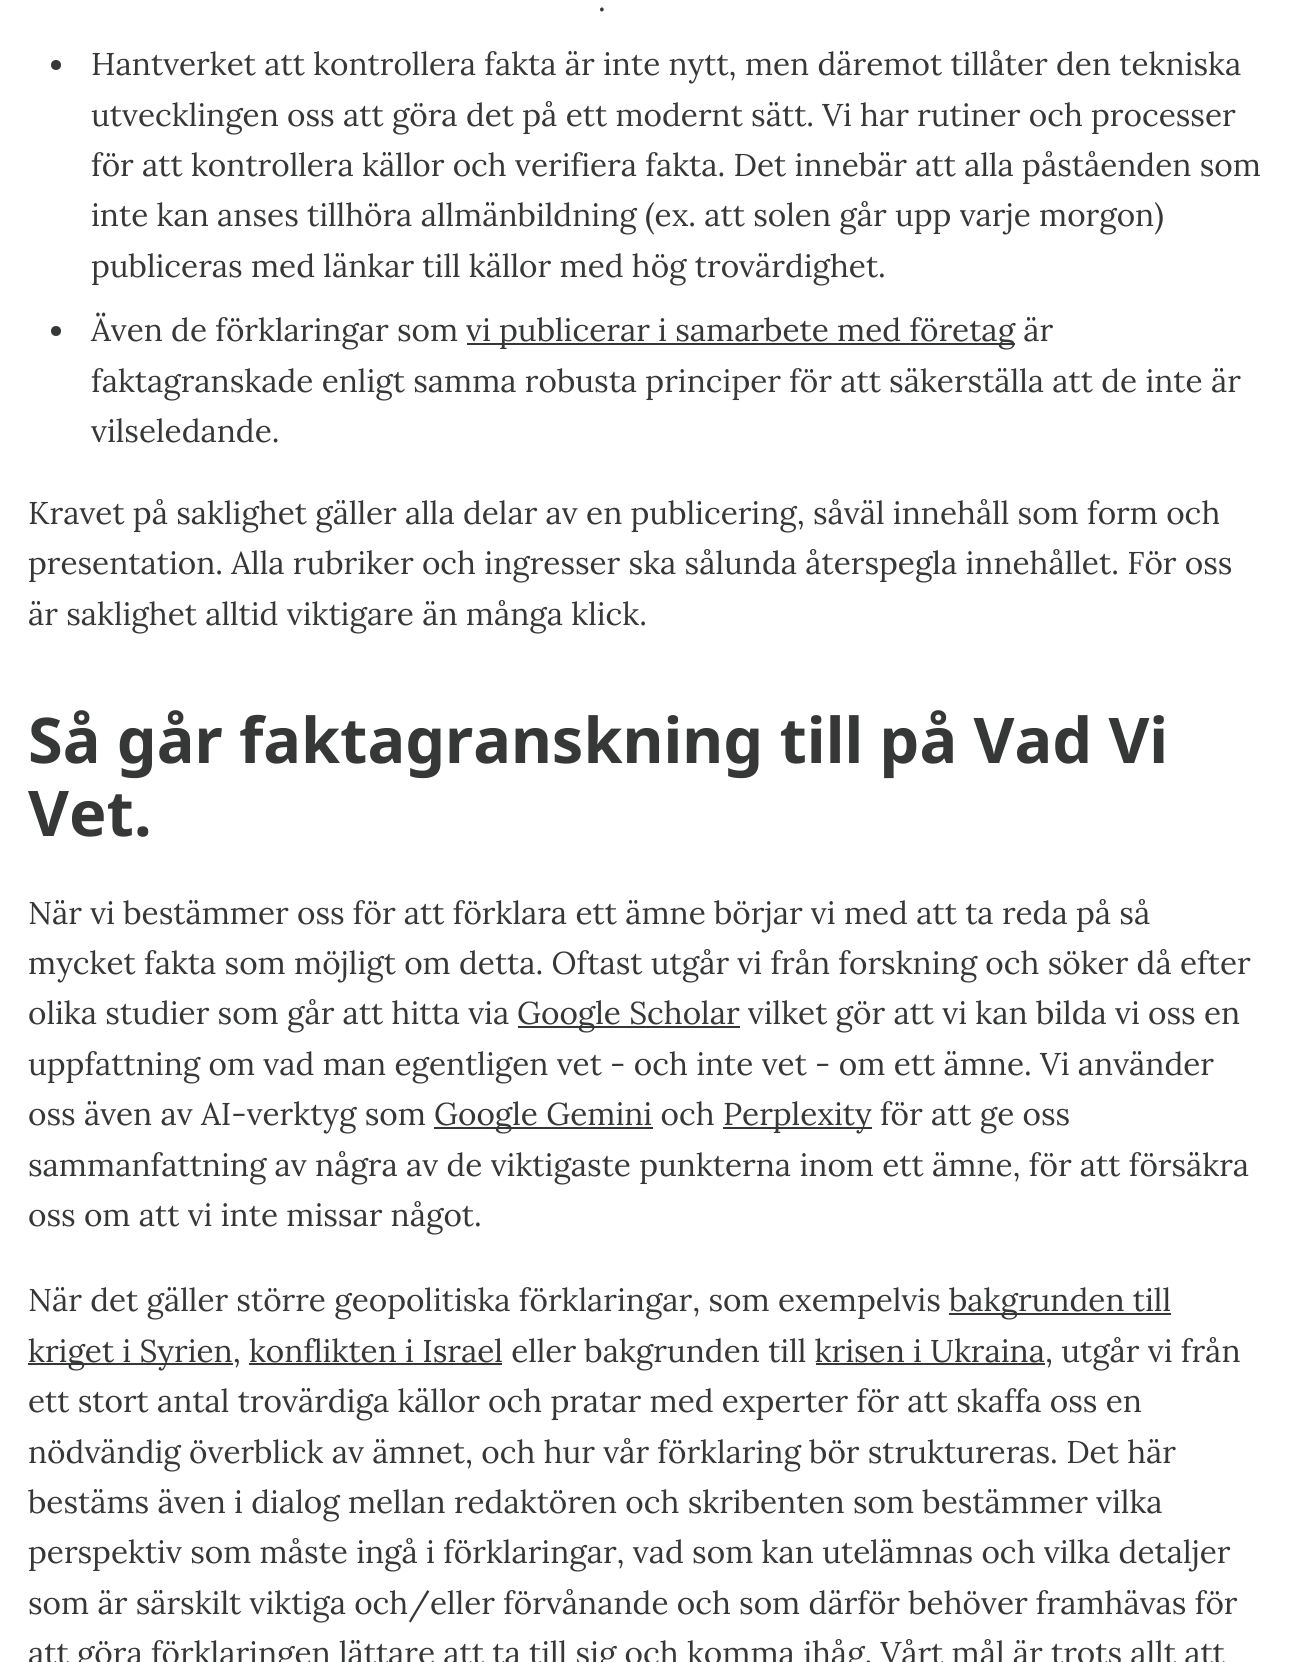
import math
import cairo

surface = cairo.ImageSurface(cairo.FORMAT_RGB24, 1289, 1662)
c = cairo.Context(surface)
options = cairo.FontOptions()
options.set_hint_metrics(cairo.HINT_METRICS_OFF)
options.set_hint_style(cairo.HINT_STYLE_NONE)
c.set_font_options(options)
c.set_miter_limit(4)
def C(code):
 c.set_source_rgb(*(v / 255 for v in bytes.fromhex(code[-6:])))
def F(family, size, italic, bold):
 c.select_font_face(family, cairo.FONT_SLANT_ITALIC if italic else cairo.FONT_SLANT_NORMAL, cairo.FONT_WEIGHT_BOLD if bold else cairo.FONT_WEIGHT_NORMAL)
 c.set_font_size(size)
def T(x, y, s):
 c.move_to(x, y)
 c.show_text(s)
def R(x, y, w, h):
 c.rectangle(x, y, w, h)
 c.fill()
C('ffffff')
c.paint()
F('Lora',31.5,0,0)
C('363737')
T(598,11,'.')
c.new_path()
c.arc(56,65,5,0,2 * math.pi)
c.fill()
T(91,75,'Hantverket att kontrollera fakta är inte nytt, men däremot tillåter den tekniska')
T(91,126,'utvecklingen oss att göra det på ett modernt sätt. Vi har rutiner och processer')
T(91,176,'för att kontrollera källor och verifiera fakta. Det innebär att alla påståenden som')
T(91,226,'inte kan anses tillhöra allmänbildning (ex. att solen går upp varje morgon)')
T(91,277,'publiceras med länkar till källor med hög trovärdighet.')
c.new_path()
c.arc(56,331,5,0,2 * math.pi)
c.fill()
T(91,341,'Även de förklaringar som')
R(467,343,548,2)
T(466,341,'vi publicerar i samarbete med företag är')
T(91,392,'faktagranskade enligt samma robusta principer för att säkerställa att de inte är')
T(91,442,'vilseledande.')
T(28,524,'Kravet på saklighet gäller alla delar av en publicering, såväl innehåll som form och')
T(28,574,'presentation. Alla rubriker och ingresser ska sålunda återspegla innehållet. För oss')
T(28,625,'är saklighet alltid viktigare än många klick.')
F('Noto Sans',63,0,1)
T(28,763,'Så går faktagranskning till på Vad Vi')
T(28,836,'Vet.')
F('Lora',31.5,0,0)
T(28,924,'När vi bestämmer oss för att förklara ett ämne börjar vi med att ta reda på så')
T(28,974,'mycket fakta som möjligt om detta. Oftast utgår vi från forskning och söker då efter')
T(28,1024,'olika studier som går att hitta via')
R(518,1026,222,2)
T(517,1024,'Google Scholar vilket gör att vi kan bilda vi oss en')
T(28,1075,'uppfattning om vad man egentligen vet - och inte vet - om ett ämne. Vi använder')
T(28,1125,'oss även av AI-verktyg som')
R(434,1127,219,2)
T(434,1125,'Google Gemini och')
R(723,1127,149,2)
T(723,1125,'Perplexity för att ge oss')
T(28,1176,'sammanfattning av några av de viktigaste punkterna inom ett ämne, för att försäkra')
T(28,1226,'oss om att vi inte missar något.')
T(28,1311,'När det gäller större geopolitiska förklaringar, som exempelvis')
R(949,1313,222,2)
T(949,1311,'bakgrunden till')
R(28,1363,205,2)
T(28,1362,'kriget i Syrien, konflikten i Israel eller bakgrunden till krisen i Ukraina, utgår vi från')
R(249,1363,253,2)
R(816,1363,229,2)
T(28,1412,'ett stort antal trovärdiga källor och pratar med experter för att skaffa oss en')
T(28,1463,'nödvändig överblick av ämnet, och hur vår förklaring bör struktureras. Det här')
T(28,1513,'bestäms även i dialog mellan redaktören och skribenten som bestämmer vilka')
T(28,1563,'perspektiv som måste ingå i förklaringar, vad som kan utelämnas och vilka detaljer')
T(28,1614,'som är särskilt viktiga och/eller förvånande och som därför behöver framhävas för')
T(28,1664,'att göra förklaringen lättare att ta till sig och komma ihåg. Vårt mål är trots allt att')
surface.write_to_png('o.png')
